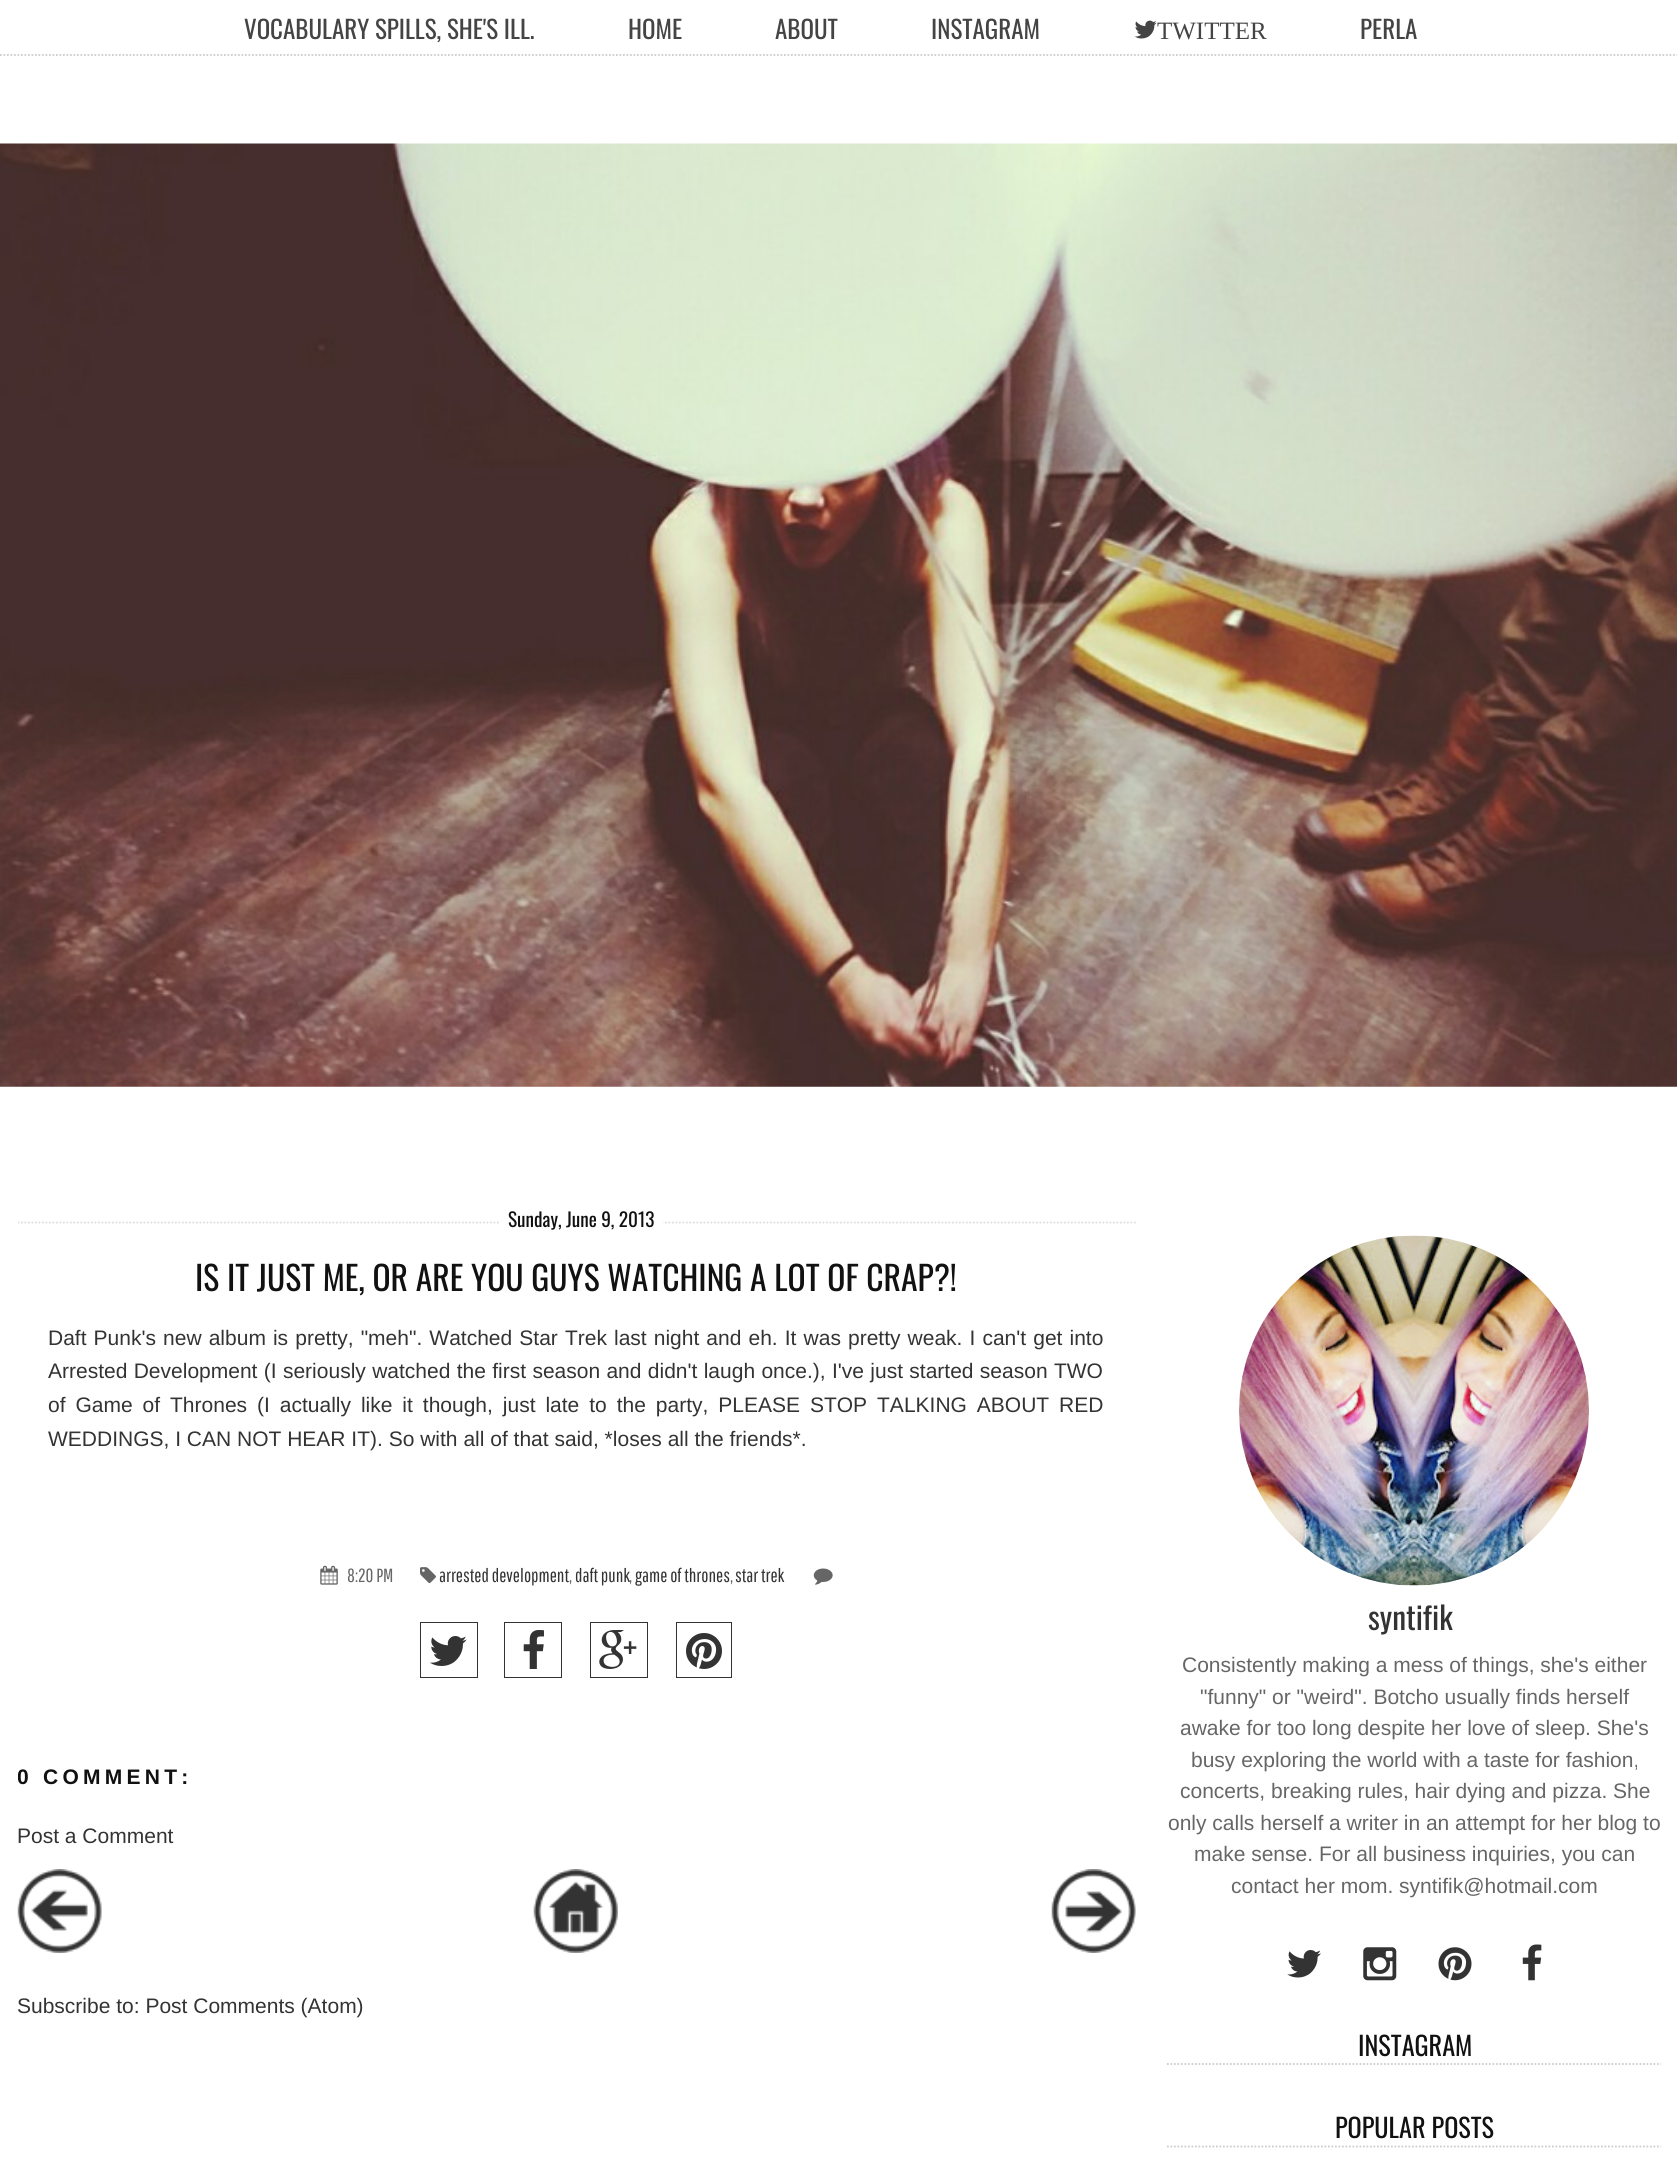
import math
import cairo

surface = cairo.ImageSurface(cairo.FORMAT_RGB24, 1677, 2178)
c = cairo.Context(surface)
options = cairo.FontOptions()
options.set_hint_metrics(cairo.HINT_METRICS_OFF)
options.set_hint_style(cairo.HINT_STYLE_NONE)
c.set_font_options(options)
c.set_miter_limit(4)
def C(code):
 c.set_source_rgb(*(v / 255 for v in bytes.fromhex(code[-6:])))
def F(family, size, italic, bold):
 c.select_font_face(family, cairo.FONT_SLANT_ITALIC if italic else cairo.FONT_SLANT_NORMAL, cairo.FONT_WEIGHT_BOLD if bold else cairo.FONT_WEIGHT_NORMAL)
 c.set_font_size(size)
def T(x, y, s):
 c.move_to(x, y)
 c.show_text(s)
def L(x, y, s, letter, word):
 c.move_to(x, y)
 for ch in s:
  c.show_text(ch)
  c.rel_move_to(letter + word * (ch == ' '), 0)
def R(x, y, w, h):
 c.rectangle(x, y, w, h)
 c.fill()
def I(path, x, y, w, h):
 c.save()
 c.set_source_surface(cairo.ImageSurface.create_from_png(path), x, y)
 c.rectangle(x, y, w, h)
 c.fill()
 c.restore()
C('ffffff')
c.paint()
c.new_path()
c.move_to(0,55)
c.line_to(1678,55)
C('cccccc')
c.set_line_width(1.8)
c.set_dash([1.75,1.75])
c.stroke()
F('Oswald',25,0,0)
C('444444')
T(244,39,'VOCABULARY SPILLS, SHE\'S ILL.')
T(628,39,'HOME')
T(775,39,'ABOUT')
T(931,39,'INSTAGRAM')
I('1.png',1134,20,23,19)
F('Liberation Serif',25,0,0)
T(1157,39,'TWITTER')
F('Oswald',25,0,0)
T(1360,39,'PERLA')
I('2.png',0,143,1677,944)
c.save()
c.rectangle(18,1122,1118,973)
c.clip()
c.new_path()
c.move_to(17.5,1222.5)
c.line_to(1136,1222.5)
C('dddddd')
c.stroke()
c.restore()
C('ffffff')
R(500,1221,163,3)
F('Oswald',19.25,0,0)
C('111111')
T(508,1227,'Sunday, June 9, 2013')
F('Oswald',33.6,0,0)
T(195,1291,'IS IT JUST ME, OR ARE YOU GUYS WATCHING A LOT OF CRAP?!')
F('Liberation Sans',21,0,0)
C('333333')
L(48,1345,'Daft Punk\'s new album is pretty, "meh". Watched Star Trek last night and eh. It was pretty weak. I can\'t get into',0,1.25)
L(48,1378,'Arrested Development (I seriously watched the first season and didn\'t laugh once.), I\'ve just started season TWO',0,.5)
L(48,1412,'of Game of Thrones (I actually like it though, just late to the party, PLEASE STOP TALKING ABOUT RED',0,4.1)
T(48,1446,'WEDDINGS, I CAN NOT HEAR IT). So with all of that said, *loses all the friends*.')
I('3.png',320,1565,18,20)
F('Pathway Gothic One',19,0,0)
C('666666')
T(347,1582,'8:20 PM')
I('4.png',420,1567,16,17)
C('333333')
T(439,1582,'arrested development')
C('666666')
T(569,1582,',')
C('333333')
T(575,1582,'daft punk')
C('666666')
T(629,1582,',')
C('333333')
T(635,1582,'game of thrones')
C('666666')
T(730,1582,',')
C('333333')
T(735,1582,'star trek')
I('5.png',813,1568,20,17)
I('6.png',430,1636,37,30)
c.rectangle(420.5,1622.5,57,55)
c.set_line_width(1)
c.set_dash([])
c.stroke()
I('7.png',523,1630,21,39)
c.rectangle(504.5,1622.5,57,55)
c.stroke()
I('8.png',599,1630,38,39)
c.rectangle(590.5,1622.5,57,55)
c.stroke()
I('9.png',686,1633,36,36)
c.rectangle(676.5,1622.5,55,55)
c.stroke()
c.save()
c.rectangle(18,1122,1118,973)
c.clip()
F('Liberation Sans',21,0,1)
C('111111')
L(17,1784,'0 COMMENT:',4.25,0)
c.restore()
F('Liberation Sans',21,0,0)
T(17,1843,'Post a Comment')
I('10.png',17,1869,85,84)
I('11.png',533,1869,85,84)
I('12.png',1051,1869,85,84)
T(17,2013,'Subscribe to: Post Comments (Atom)')
I('13.png',1239,1235,350,351)
F('Oswald',31.5,0,0)
T(1368,1630,'syntifik')
F('Liberation Sans',21,0,0)
C('666666')
T(1182,1672,'Consistently making a mess of things, she\'s either')
T(1200,1704,'"funny" or "weird". Botcho usually finds herself')
T(1180,1735,'awake for too long despite her love of sleep. She\'s')
T(1191,1767,'busy exploring the world with a taste for fashion,')
T(1180,1798,'concerts, breaking rules, hair dying and pizza. She')
T(1168,1830,'only calls herself a writer in an attempt for her blog to')
T(1194,1861,'make sense. For all business inquiries, you can')
T(1231,1893,'contact her mom. syntifik@hotmail.com')
I('14.png',1287,1950,34,28)
I('15.png',1363,1947,34,34)
I('16.png',1438,1947,34,34)
I('17.png',1522,1944,20,37)
c.new_path()
c.move_to(1167,2064)
c.line_to(1661,2064)
C('cccccc')
c.set_line_width(1.8)
c.set_dash([1.75,1.75])
c.stroke()
F('Oswald',26.25,0,0)
C('111111')
T(1358,2056,'INSTAGRAM')
c.new_path()
c.move_to(1167,2146.5)
c.line_to(1661,2146.5)
C('cccccc')
c.stroke()
C('111111')
T(1335,2138,'POPULAR POSTS')
surface.write_to_png('o.png')
